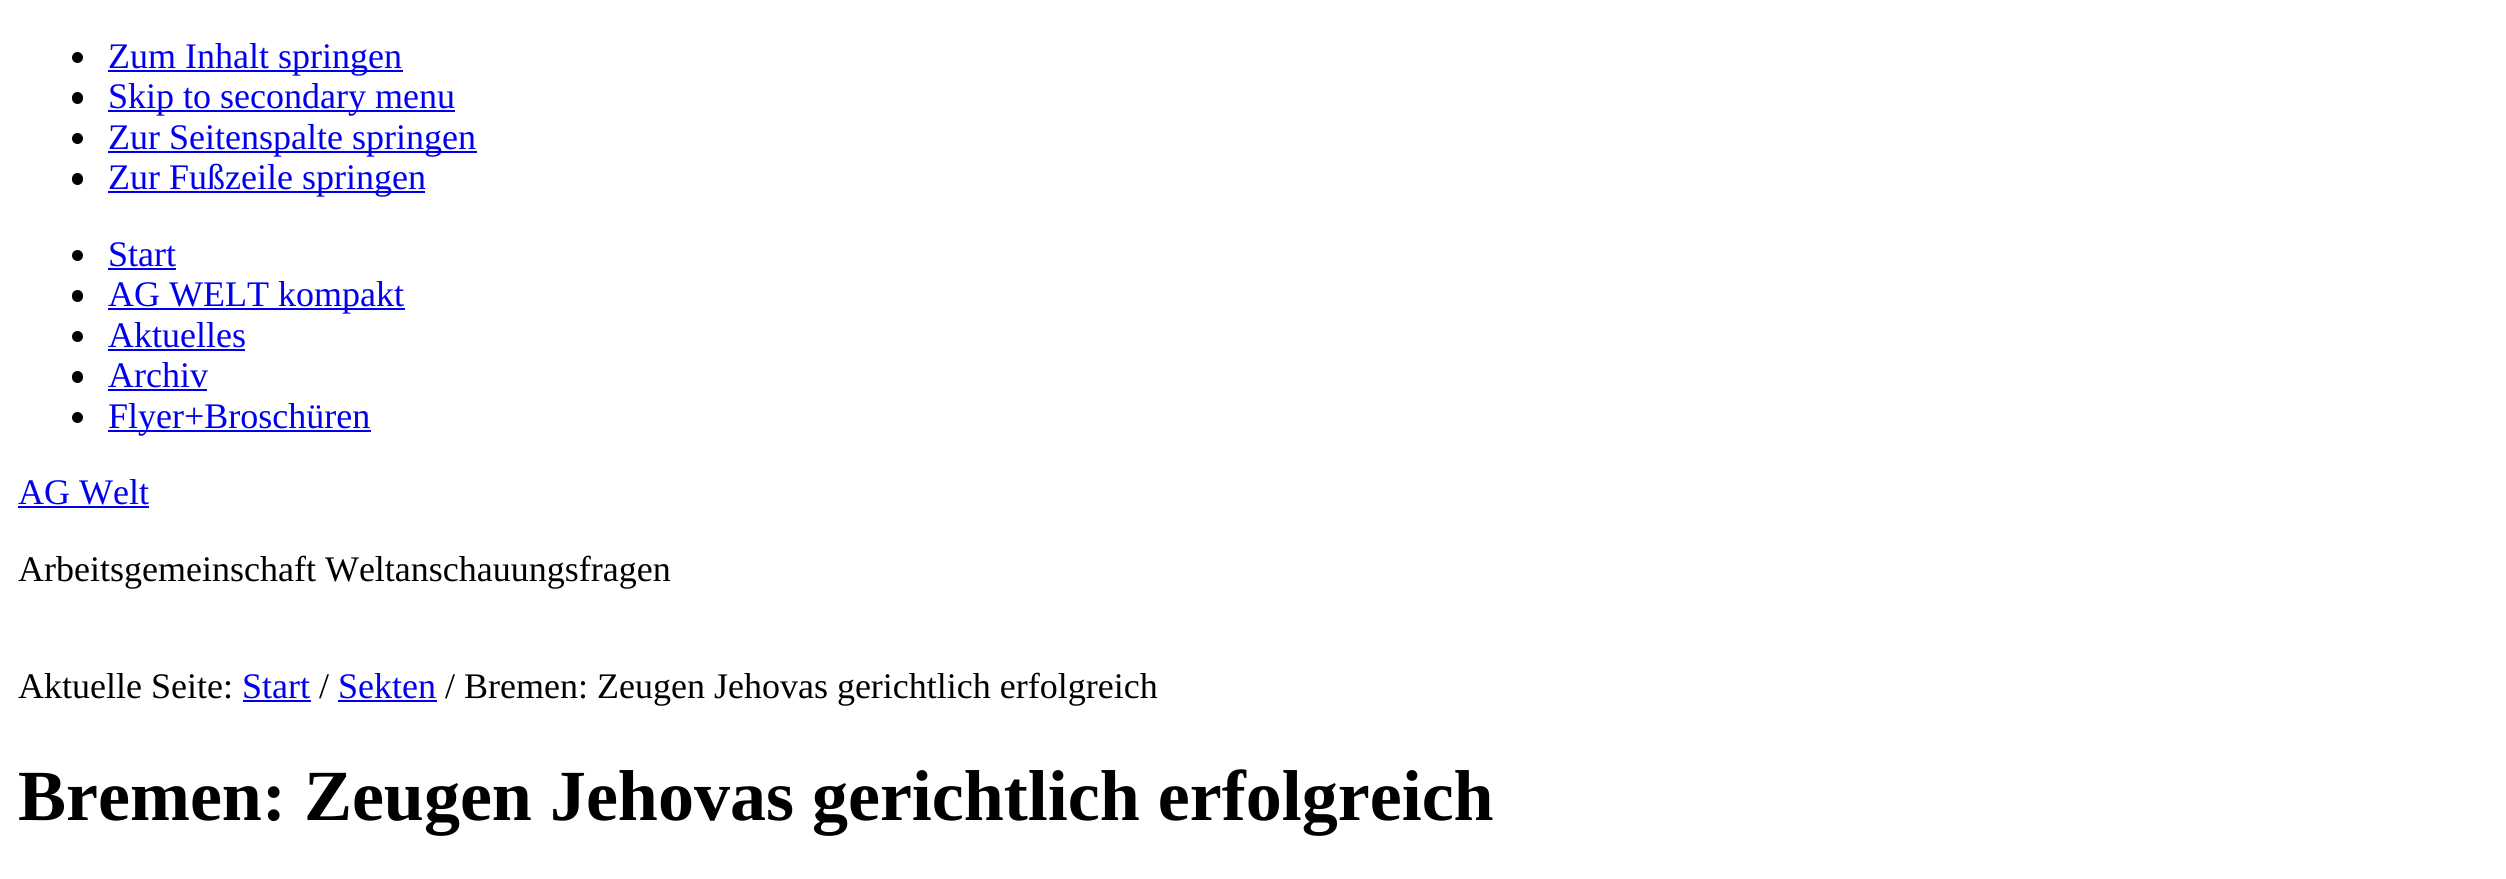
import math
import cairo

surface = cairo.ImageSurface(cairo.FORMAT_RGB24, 2506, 879)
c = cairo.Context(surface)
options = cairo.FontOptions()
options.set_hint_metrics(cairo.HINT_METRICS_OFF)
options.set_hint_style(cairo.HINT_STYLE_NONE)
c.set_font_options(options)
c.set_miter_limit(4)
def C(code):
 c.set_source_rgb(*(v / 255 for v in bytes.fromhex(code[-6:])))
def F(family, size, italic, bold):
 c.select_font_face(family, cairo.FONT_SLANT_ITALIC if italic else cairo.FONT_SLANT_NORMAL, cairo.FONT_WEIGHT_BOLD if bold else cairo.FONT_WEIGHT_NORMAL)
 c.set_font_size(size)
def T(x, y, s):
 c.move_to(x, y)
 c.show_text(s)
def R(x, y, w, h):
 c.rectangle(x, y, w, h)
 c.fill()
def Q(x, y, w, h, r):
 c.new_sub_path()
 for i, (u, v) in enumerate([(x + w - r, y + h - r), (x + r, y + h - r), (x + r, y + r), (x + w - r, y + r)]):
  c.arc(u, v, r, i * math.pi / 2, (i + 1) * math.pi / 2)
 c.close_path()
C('ffffff')
c.paint()
C('000000')
c.arc(77.5,57.5,5.5,0,2 * math.pi)
c.fill()
C('0000ee')
R(108,70,295,2)
F('Liberation Serif',36,0,0)
T(108,68,'Zum Inhalt springen')
C('000000')
Q(72,92,11,12,5.5)
c.fill()
C('0000ee')
R(108,110,347,2)
T(108,108,'Skip to secondary menu')
C('000000')
c.new_path()
c.arc(77.5,138.5,5.5,0,2 * math.pi)
c.fill()
C('0000ee')
R(108,151,369,2)
T(108,149,'Zur Seitenspalte springen')
C('000000')
Q(72,173,11,12,5.5)
c.fill()
C('0000ee')
R(108,191,317,2)
T(108,189,'Zur Fußzeile springen')
C('000000')
c.new_path()
c.arc(77.5,255.5,5.5,0,2 * math.pi)
c.fill()
C('0000ee')
T(108,266,'Start')
R(108,268,68,2)
C('000000')
Q(72,290,11,12,5.5)
c.fill()
C('0000ee')
R(108,308,297,2)
T(108,306,'AG WELT kompakt')
C('000000')
c.new_path()
c.arc(77.5,336.5,5.5,0,2 * math.pi)
c.fill()
C('0000ee')
T(108,347,'Aktuelles')
R(108,349,137,2)
C('000000')
Q(72,371,11,12,5.5)
c.fill()
C('0000ee')
T(108,387,'Archiv')
R(108,389,99,2)
C('000000')
c.new_path()
c.arc(77.5,417.5,5.5,0,2 * math.pi)
c.fill()
C('0000ee')
R(108,430,263,2)
T(108,428,'Flyer+Broschüren')
T(18,504,'AG Welt')
R(18,506,131,2)
C('000000')
T(18,581,'Arbeitsgemeinschaft Weltanschauungsfragen')
T(18,698,'Aktuelle Seite:')
C('0000ee')
T(242,698,'Start')
R(243,700,68,2)
C('000000')
T(319,698,'/')
C('0000ee')
T(338,698,'Sekten')
R(338,700,99,2)
C('000000')
T(445,698,'/ Bremen: Zeugen Jehovas gerichtlich erfolgreich')
F('Liberation Serif',72,0,1)
T(18,820,'Bremen: Zeugen Jehovas gerichtlich erfolgreich')
surface.write_to_png('o.png')
